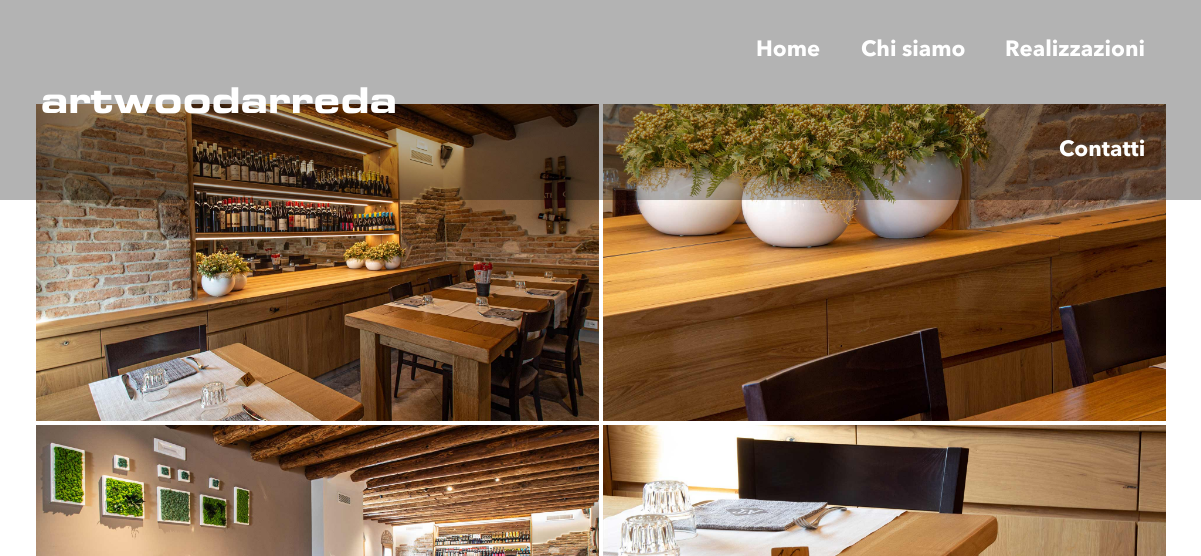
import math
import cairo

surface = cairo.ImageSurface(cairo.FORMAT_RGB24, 1201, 556)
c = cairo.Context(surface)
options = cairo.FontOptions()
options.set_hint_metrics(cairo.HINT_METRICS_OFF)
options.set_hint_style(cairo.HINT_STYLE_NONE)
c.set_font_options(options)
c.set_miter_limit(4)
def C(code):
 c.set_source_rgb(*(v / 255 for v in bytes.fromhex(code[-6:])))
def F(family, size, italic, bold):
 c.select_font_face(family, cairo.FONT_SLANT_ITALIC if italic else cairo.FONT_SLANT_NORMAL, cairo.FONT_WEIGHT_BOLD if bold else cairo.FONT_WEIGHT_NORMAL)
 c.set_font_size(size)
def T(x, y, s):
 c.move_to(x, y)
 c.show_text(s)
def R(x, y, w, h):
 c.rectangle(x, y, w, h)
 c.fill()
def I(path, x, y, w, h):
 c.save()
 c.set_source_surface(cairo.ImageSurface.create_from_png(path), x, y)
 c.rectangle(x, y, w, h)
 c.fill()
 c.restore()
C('ffffff')
c.paint()
I('1.png',36,104,563,317)
I('2.png',603,104,563,317)
c.set_source_rgba(0,0,0,0.3)
R(0,0,1201,200)
F('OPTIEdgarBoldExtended',32,0,1)
C('ffffff')
T(40,113,'artwoodarreda')
F('Avenir Next',22,0,1)
T(756,56,'Home')
T(861,56,'Chi siamo')
T(1005,56,'Realizzazioni')
T(1059,156,'Contatti')
I('3.png',36,425,563,131)
I('4.png',603,425,563,131)
surface.write_to_png('o.png')
